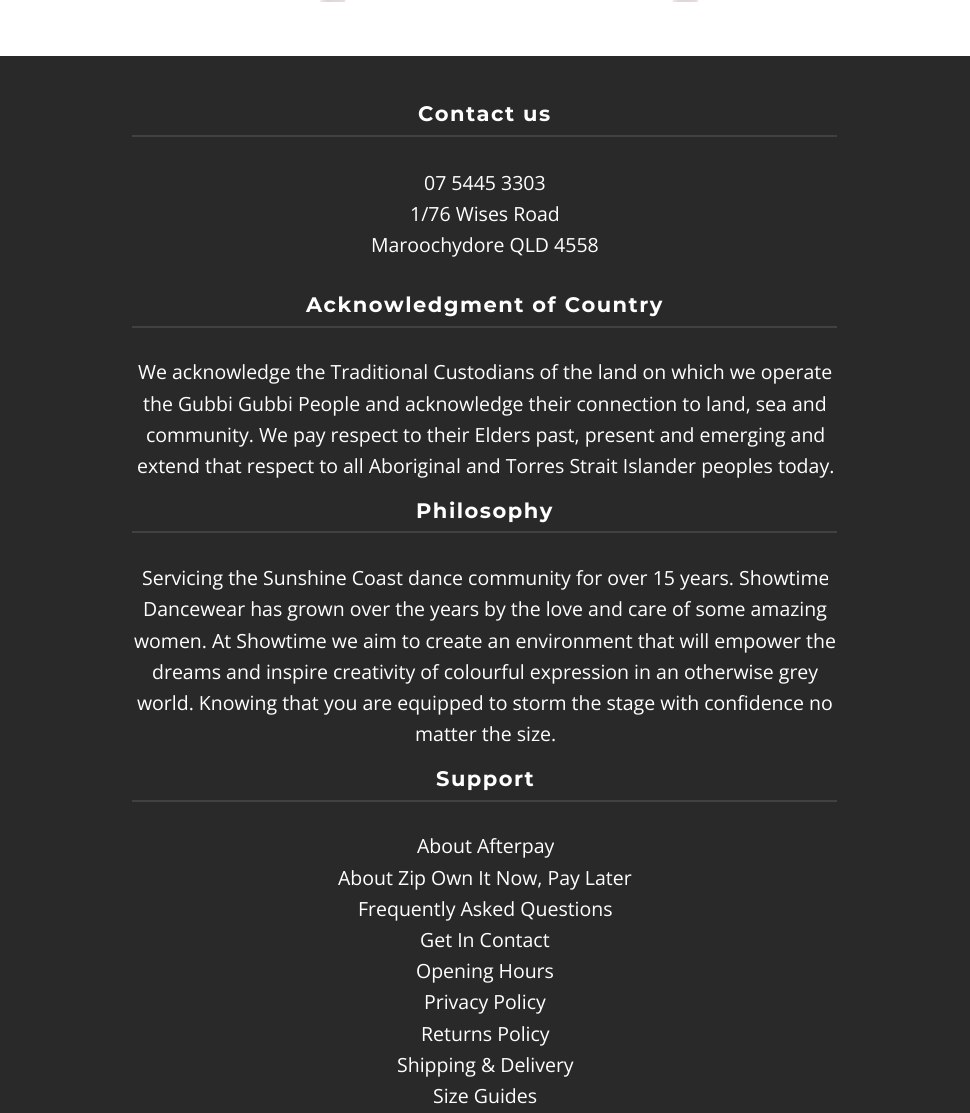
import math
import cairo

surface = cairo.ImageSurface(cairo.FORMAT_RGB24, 970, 1113)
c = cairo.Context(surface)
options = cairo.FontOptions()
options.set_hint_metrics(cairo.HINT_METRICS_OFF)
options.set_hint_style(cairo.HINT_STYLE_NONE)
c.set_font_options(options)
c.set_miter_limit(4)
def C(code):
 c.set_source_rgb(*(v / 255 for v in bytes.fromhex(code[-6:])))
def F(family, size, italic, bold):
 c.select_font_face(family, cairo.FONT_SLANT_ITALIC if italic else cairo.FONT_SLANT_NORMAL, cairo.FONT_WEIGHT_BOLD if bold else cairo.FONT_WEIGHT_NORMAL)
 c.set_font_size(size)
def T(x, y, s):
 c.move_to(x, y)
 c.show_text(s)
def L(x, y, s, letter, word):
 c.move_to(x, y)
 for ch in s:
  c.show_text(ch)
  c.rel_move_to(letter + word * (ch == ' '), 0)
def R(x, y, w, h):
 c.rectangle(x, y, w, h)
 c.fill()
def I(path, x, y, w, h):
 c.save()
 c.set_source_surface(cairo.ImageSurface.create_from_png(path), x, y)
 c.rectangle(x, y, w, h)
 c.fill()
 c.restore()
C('ffffff')
c.paint()
I('1.png',320,0,26,2)
I('2.png',672,0,27,2)
C('292929')
R(0,56,970,1057)
C('414141')
R(132,135,705,2)
F('Montserrat',21,0,1)
C('ffffff')
L(418,121,'Contact us',1.5,0)
F('Open Sans',19.5,0,0)
T(424,190,'07 5445 3303')
T(410,221,'1/76 Wises Road')
T(371,252,'Maroochydore QLD 4558')
C('414141')
R(132,326,705,2)
F('Montserrat',21,0,1)
C('ffffff')
L(306,312,'Acknowledgment of Country',1.5,0)
F('Open Sans',19.5,0,0)
T(138,379,'We acknowledge the Traditional Custodians of the land on which we operate')
T(143,411,'the Gubbi Gubbi People and acknowledge their connection to land, sea and')
T(146,442,'community. We pay respect to their Elders past, present and emerging and')
T(137,473,'extend that respect to all Aboriginal and Torres Strait Islander peoples today.')
C('414141')
R(132,531,705,2)
F('Montserrat',21,0,1)
C('ffffff')
L(416,518,'Philosophy',1.5,0)
F('Open Sans',19.5,0,0)
T(142,585,'Servicing the Sunshine Coast dance community for over 15 years. Showtime')
T(143,616,'Dancewear has grown over the years by the love and care of some amazing')
T(134,648,'women. At Showtime we aim to create an environment that will empower the')
T(152,679,'dreams and inspire creativity of colourful expression in an otherwise grey')
T(137,710,'world. Knowing that you are equipped to storm the stage with confidence no')
T(415,741,'matter the size.')
C('414141')
R(132,800,705,2)
F('Montserrat',21,0,1)
C('ffffff')
L(436,786,'Support',1.5,0)
F('Open Sans',19.5,0,0)
T(417,853,'About Afterpay')
T(338,885,'About Zip Own It Now, Pay Later')
T(358,916,'Frequently Asked Questions')
T(420,947,'Get In Contact')
T(416,978,'Opening Hours')
T(424,1009,'Privacy Policy')
T(421,1041,'Returns Policy')
T(397,1072,'Shipping & Delivery')
T(433,1103,'Size Guides')
surface.write_to_png('o.png')
